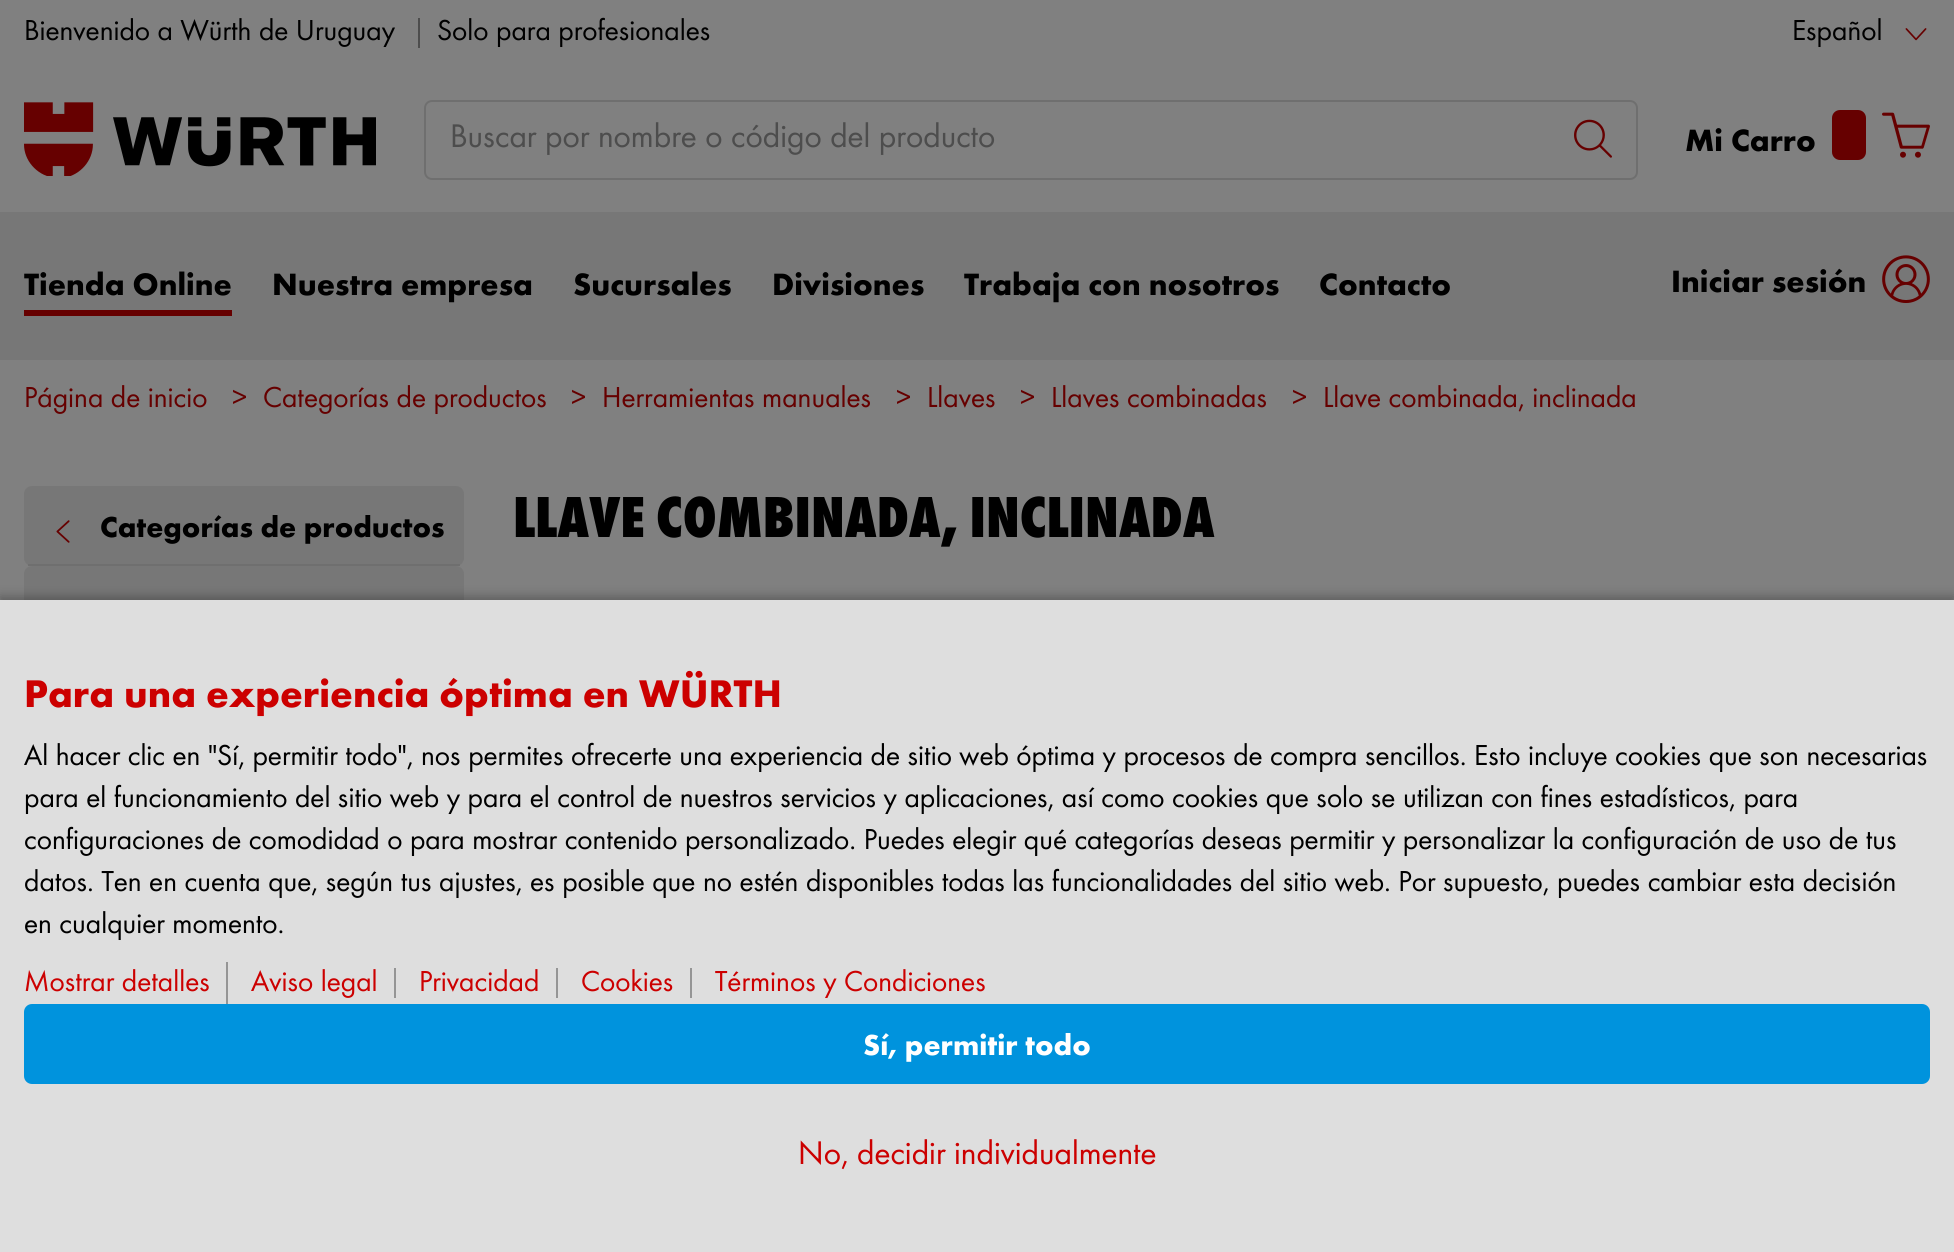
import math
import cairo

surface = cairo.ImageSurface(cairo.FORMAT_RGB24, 1954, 1252)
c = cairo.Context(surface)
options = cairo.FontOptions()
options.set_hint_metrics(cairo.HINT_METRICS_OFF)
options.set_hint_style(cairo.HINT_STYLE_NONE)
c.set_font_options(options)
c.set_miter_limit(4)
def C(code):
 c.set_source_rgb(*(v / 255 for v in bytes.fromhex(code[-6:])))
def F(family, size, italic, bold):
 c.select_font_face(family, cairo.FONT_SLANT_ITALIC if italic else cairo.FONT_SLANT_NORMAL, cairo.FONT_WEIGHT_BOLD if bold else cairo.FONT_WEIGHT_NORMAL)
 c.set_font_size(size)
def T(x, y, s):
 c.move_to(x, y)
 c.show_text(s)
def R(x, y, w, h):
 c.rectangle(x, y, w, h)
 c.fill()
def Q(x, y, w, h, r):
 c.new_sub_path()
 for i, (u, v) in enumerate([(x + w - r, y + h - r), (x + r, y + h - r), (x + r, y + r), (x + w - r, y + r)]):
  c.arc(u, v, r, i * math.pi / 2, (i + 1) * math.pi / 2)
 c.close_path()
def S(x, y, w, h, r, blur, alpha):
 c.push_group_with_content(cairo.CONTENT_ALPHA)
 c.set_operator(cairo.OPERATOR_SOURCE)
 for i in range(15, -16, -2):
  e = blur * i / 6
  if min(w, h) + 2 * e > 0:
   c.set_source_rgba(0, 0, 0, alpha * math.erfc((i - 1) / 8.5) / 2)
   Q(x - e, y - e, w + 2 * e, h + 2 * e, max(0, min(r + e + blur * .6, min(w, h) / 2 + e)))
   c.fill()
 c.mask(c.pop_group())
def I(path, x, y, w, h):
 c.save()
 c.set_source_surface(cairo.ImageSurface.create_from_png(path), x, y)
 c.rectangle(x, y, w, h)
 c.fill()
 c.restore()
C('808080')
c.paint()
F('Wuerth',30,0,0)
C('000000')
T(24,40,'Bienvenido a Würth de Uruguay')
C('4d4d4d')
R(418,18,2,30)
C('000000')
T(437,40,'Solo para profesionales')
T(1792,40,'Español')
I('1.png',1905,28,22,13)
I('2.png',24,102,352,74)
Q(425,101,1212,78,7)
C('6f6f6f')
c.stroke()
F('Wuerth',34,0,0)
C('4d4d4d')
T(450,147,'Buscar por nombre o código del producto')
I('3.png',1574,119,38,39)
F('Wuerth',32,0,1)
C('000000')
T(1685,151,'Mi Carro')
C('660000')
Q(1832,110,34,50,8)
c.fill()
I('4.png',1882,112,48,46)
C('777777')
R(0,212,1954,148)
C('660000')
R(24,310,208,6)
C('000000')
T(24,295,'Tienda Online')
T(272,295,'Nuestra empresa')
T(573,295,'Sucursales')
T(772,295,'Divisiones')
T(964,295,'Trabaja con nosotros')
T(1319,295,'Contacto')
T(1671,292,'Iniciar sesión')
I('5.png',1882,255,48,48)
F('Wuerth',30,0,0)
C('660000')
T(24,407,'Página de inicio')
T(232,407,'>')
T(263,407,'Categorías de productos')
T(571,407,'>')
T(602,407,'Herramientas manuales')
T(896,407,'>')
T(927,407,'Llaves')
T(1020,407,'>')
T(1051,407,'Llaves combinadas')
T(1292,407,'>')
T(1323,407,'Llave combinada, inclinada')
C('777777')
Q(24,486,440,80,8)
c.fill()
C('6f6f6f')
R(28,564,432,2)
I('6.png',56,520,14,23)
F('Wuerth',30,0,1)
C('000000')
T(100,537,'Categorías de productos')
C('777777')
Q(24,566,440,80,8)
c.fill()
F('Wuerth ExtraBold',60,0,0)
C('000000')
T(513,537,'LLAVE COMBINADA, INCLINADA')
C('000000')
S(0,596,1954,652,0,5,.26)
C('dedede')
R(0,600,1954,652)
F('Wuerth',40,0,1)
C('cc0000')
T(24,707,'Para una experiencia óptima en WÜRTH')
F('Wuerth',30,0,0)
C('000000')
T(24,765,'Al hacer clic en "Sí, permitir todo", nos permites ofrecerte una experiencia de sitio web óptima y procesos de compra sencillos. Esto incluye cookies que son necesarias')
T(24,807,'para el funcionamiento del sitio web y para el control de nuestros servicios y aplicaciones, así como cookies que solo se utilizan con fines estadísticos, para')
T(24,849,'configuraciones de comodidad o para mostrar contenido personalizado. Puedes elegir qué categorías deseas permitir y personalizar la configuración de uso de tus')
T(24,891,'datos. Ten en cuenta que, según tus ajustes, es posible que no estén disponibles todas las funcionalidades del sitio web. Por supuesto, puedes cambiar esta decisión')
T(24,933,'en cualquier momento.')
C('959595')
R(226,962,2,42)
C('cc0000')
T(24,991,'Mostrar detalles')
T(251,991,'Aviso legal')
C('959595')
R(394,968,2,30)
C('cc0000')
T(419,991,'Privacidad')
C('959595')
R(556,968,2,30)
C('cc0000')
T(581,991,'Cookies')
C('959595')
R(690,968,2,30)
C('cc0000')
T(715,991,'Términos y Condiciones')
C('0093dd')
Q(24,1004,1906,80,8)
c.fill()
F('Wuerth',30,0,1)
C('ffffff')
T(863,1055,'Sí, permitir todo')
F('Wuerth',34,0,0)
C('cc0000')
T(798,1164,'No, decidir individualmente')
surface.write_to_png('o.png')
